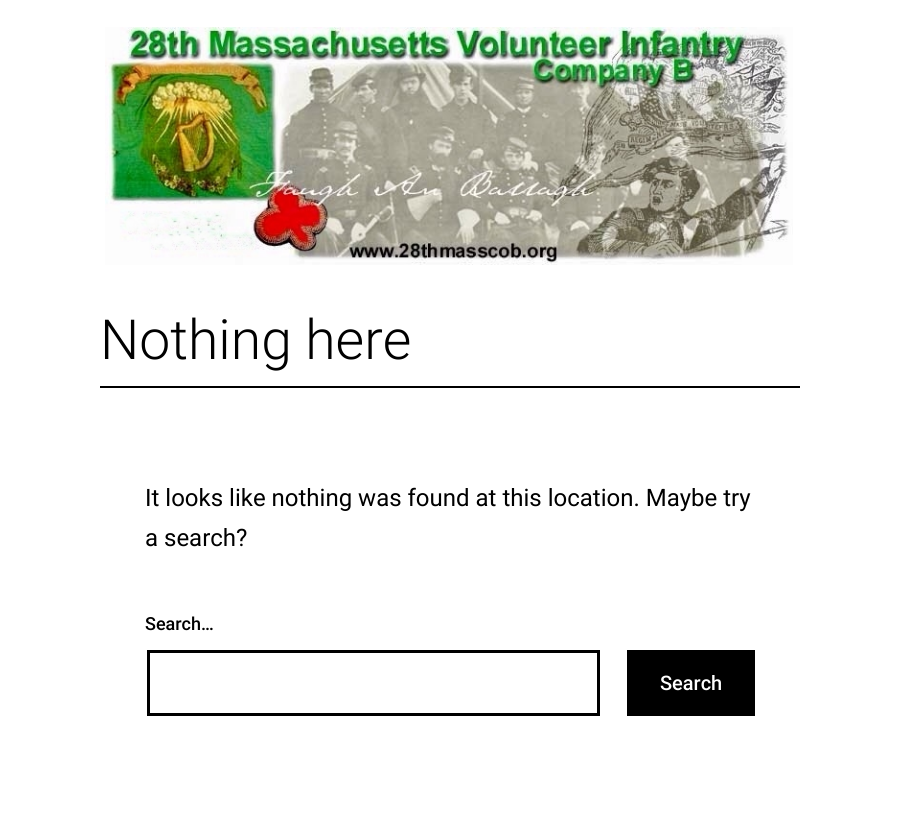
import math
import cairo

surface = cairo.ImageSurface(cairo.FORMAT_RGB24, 900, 816)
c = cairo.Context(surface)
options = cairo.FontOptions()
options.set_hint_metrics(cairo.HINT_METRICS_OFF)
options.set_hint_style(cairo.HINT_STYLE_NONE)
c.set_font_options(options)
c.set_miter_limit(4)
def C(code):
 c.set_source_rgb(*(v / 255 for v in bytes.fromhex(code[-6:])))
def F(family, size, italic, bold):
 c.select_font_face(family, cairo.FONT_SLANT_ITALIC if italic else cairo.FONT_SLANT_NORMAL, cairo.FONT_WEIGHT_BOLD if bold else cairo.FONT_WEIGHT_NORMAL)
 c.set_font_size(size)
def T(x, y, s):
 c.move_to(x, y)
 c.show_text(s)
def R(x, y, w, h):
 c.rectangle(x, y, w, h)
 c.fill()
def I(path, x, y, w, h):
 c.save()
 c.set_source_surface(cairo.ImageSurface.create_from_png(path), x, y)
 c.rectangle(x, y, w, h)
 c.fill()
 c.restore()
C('ffffff')
c.paint()
I('1.png',105,27,688,238)
C('000000')
R(100,386,700,2)
F('Roboto Light',55.25,0,0)
T(100,359,'Nothing here')
F('Roboto',24,0,0)
T(145,506,'It looks like nothing was found at this location. Maybe try')
T(145,546,'a search?')
F('Roboto Medium',18,0,0)
T(145,630,'Search…')
c.rectangle(148.5,651.5,450,63)
c.set_line_width(3)
c.stroke()
R(627,650,128,66)
F('Roboto Medium',20,0,0)
C('ffffff')
T(660,690,'Search')
surface.write_to_png('o.png')
